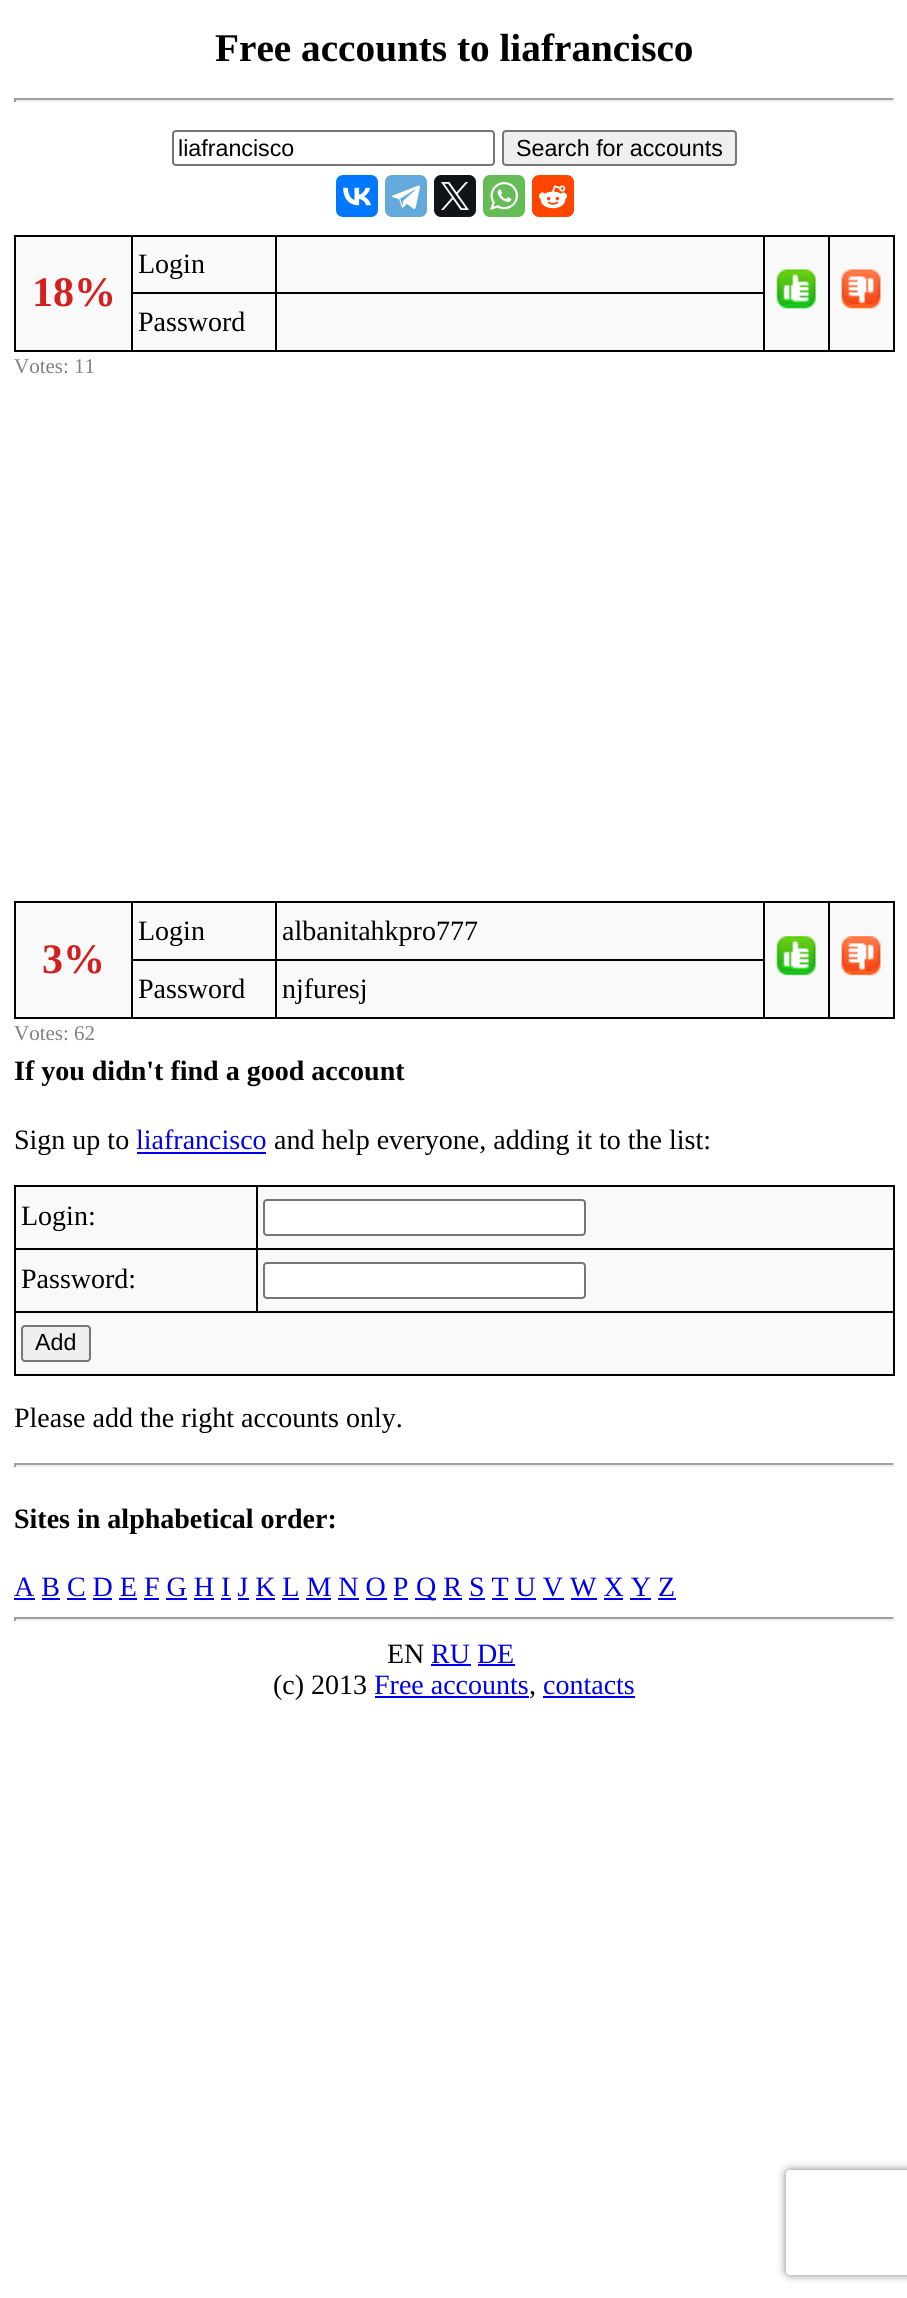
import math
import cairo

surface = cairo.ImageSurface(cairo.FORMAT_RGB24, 907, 2298)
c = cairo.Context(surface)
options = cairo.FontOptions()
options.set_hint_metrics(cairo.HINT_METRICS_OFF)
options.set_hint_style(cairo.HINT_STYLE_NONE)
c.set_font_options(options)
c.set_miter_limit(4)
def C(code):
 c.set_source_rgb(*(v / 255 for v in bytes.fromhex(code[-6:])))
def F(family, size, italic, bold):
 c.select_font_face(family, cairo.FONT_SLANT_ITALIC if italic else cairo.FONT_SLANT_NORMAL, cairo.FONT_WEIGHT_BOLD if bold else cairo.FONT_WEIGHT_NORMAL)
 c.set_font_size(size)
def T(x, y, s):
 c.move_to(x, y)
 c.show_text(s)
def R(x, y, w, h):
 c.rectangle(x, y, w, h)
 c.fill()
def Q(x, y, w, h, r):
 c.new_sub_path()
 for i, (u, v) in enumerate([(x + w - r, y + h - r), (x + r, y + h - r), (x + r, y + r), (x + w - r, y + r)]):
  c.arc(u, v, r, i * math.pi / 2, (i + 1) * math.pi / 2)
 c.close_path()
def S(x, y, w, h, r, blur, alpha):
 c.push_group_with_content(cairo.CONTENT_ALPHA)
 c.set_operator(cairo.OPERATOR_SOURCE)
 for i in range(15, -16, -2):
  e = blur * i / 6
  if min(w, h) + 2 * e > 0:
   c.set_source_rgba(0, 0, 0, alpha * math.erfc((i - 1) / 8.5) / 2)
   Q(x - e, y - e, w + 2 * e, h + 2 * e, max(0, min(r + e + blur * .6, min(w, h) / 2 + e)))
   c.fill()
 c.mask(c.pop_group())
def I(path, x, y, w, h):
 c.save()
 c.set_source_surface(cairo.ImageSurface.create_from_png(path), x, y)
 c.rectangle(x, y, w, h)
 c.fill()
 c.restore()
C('ffffff')
c.paint()
F('Liberation Serif',39.25,0,1)
C('000000')
T(215,61,'Free accounts to liafrancisco')
C('9f9f9f')
R(14,98,880,2)
C('eeeeee')
R(893,98,2,4)
R(14,100,880,2)
C('9f9f9f')
R(14,98,2,4)
Q(173,131,321,34,3)
C('767676')
c.stroke()
F('Liberation Sans',23.25,0,0)
C('000000')
T(178,156,'liafrancisco')
C('efefef')
Q(503,131,233,34,3)
c.fill_preserve()
C('767676')
c.stroke()
C('000000')
T(516,156,'Search for accounts')
C('0077ff')
Q(336,175,42,42,7)
c.fill()
I('1.png',343,187,28,19)
C('64a9dc')
Q(385,175,42,42,7)
c.fill()
I('2.png',392,185,28,24)
C('0f1419')
Q(434,175,42,42,7)
c.fill()
I('3.png',441,182,28,28)
C('65bc54')
Q(483,175,42,42,7)
c.fill()
I('4.png',490,182,28,28)
C('ff4500')
Q(532,175,42,42,7)
c.fill()
I('5.png',539,185,28,24)
C('f9f9f9')
R(16,237,877,113)
C('000000')
R(14,235,880,2)
R(893,235,2,117)
R(14,350,880,2)
R(14,235,2,117)
F('Liberation Serif',28,0,0)
T(138,273,'Login')
R(275,292,490,2)
R(275,292,2,60)
R(131,292,146,2)
R(275,235,2,59)
R(763,235,2,117)
I('6.png',776,269,40,40)
R(828,235,2,117)
I('7.png',841,269,40,40)
F('Liberation Serif',42,0,1)
C('d22020')
T(32,306,'18%')
C('000000')
R(131,235,2,117)
F('Liberation Serif',28,0,0)
T(138,331,'Password')
F('Liberation Serif',21,0,0)
C('808080')
T(14,373,'Votes: 11')
C('f9f9f9')
R(16,903,877,114)
C('000000')
R(14,901,880,2)
R(893,901,2,118)
R(14,1017,880,2)
R(14,901,2,118)
F('Liberation Serif',28,0,0)
T(138,940,'Login')
R(275,959,490,2)
R(275,959,2,60)
R(131,959,146,2)
R(275,901,2,60)
T(282,940,'albanitahkpro777')
R(763,901,2,118)
I('8.png',776,936,40,40)
R(828,901,2,118)
I('9.png',841,936,40,40)
F('Liberation Serif',42,0,1)
C('d22020')
T(42,973,'3%')
C('000000')
R(131,901,2,118)
F('Liberation Serif',28,0,0)
T(138,998,'Password')
T(282,998,'njfuresj')
F('Liberation Serif',21,0,0)
C('808080')
T(14,1040,'Votes: 62')
F('Liberation Serif',28,0,1)
C('000000')
T(14,1080,'If you didn\'t find a good account')
F('Liberation Serif',28,0,0)
T(14,1149,'Sign up to')
C('0000ee')
T(136,1149,'liafrancisco')
R(137,1152,129,2)
C('000000')
T(274,1149,'and help everyone, adding it to the list:')
C('f9f9f9')
R(16,1187,877,187)
C('000000')
R(14,1185,880,2)
R(893,1185,2,191)
R(14,1374,880,2)
R(14,1185,2,191)
T(21,1225,'Login:')
R(256,1248,638,2)
R(14,1311,880,2)
R(256,1248,2,65)
R(14,1248,243,2)
R(256,1185,2,65)
C('ffffff')
Q(264,1200,321,35,3)
c.fill_preserve()
C('767676')
c.stroke()
C('000000')
T(21,1288,'Password:')
C('ffffff')
Q(264,1263,321,35,3)
c.fill_preserve()
C('767676')
c.stroke()
C('efefef')
Q(22,1326,68,35,3)
c.fill_preserve()
C('767676')
c.stroke()
F('Liberation Sans',23.25,0,0)
C('000000')
T(35,1350,'Add')
c.save()
c.set_fill_rule(cairo.FILL_RULE_EVEN_ODD)
c.new_path()
c.move_to(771,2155)
c.line_to(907,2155)
c.line_to(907,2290)
c.line_to(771,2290)
c.close_path()
c.move_to(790,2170)
c.line_to(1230,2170)
c.curve_to(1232,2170,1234,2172,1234,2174)
c.line_to(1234,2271)
c.curve_to(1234,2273,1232,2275,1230,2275)
c.line_to(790,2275)
c.curve_to(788,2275,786,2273,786,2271)
c.line_to(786,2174)
c.curve_to(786,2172,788,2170,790,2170)
c.close_path()
c.clip()
C('808080')
S(786,2170,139,105,4,4.5,1)
c.restore()
F('Liberation Serif',28,0,0)
T(14,1427,'Please add the right accounts only.')
C('9f9f9f')
R(14,1463,880,2)
C('eeeeee')
R(893,1463,2,4)
R(14,1465,880,2)
C('9f9f9f')
R(14,1463,2,4)
F('Liberation Serif',28,0,1)
C('000000')
T(14,1528,'Sites in alphabetical order:')
F('Liberation Serif',28,0,0)
C('0000ee')
T(14,1596,'A B C D E F G H I J K L M N O P')
R(14,1598,21,2)
R(415,1598,21,2)
T(416,1596,'Q R S T U V W X Y Z')
R(42,1598,18,2)
R(67,1598,19,2)
R(93,1598,19,2)
R(119,1598,18,2)
R(144,1598,15,2)
R(166,1598,21,2)
R(194,1598,20,2)
R(221,1598,10,2)
R(238,1598,11,2)
R(256,1598,19,2)
R(282,1598,17,2)
R(306,1598,25,2)
R(338,1598,21,2)
R(366,1598,21,2)
R(394,1598,14,2)
R(443,1598,19,2)
R(469,1598,16,2)
R(492,1598,16,2)
R(515,1598,21,2)
R(543,1598,21,2)
R(571,1598,26,2)
R(604,1598,19,2)
R(630,1598,21,2)
R(658,1598,18,2)
C('9f9f9f')
R(14,1617,880,2)
C('eeeeee')
R(893,1617,2,4)
R(14,1619,880,2)
C('9f9f9f')
R(14,1617,2,4)
C('000000')
T(387,1663,'EN')
C('0000ee')
T(431,1663,'RU DE')
R(431,1664,40,2)
R(478,1664,37,2)
C('000000')
T(273,1694,'(c) 2013')
C('0000ee')
T(374,1694,'Free accounts')
R(375,1696,154,2)
C('000000')
T(529,1694,',')
C('0000ee')
T(543,1694,'contacts')
R(543,1696,92,2)
surface.write_to_png('o.png')
